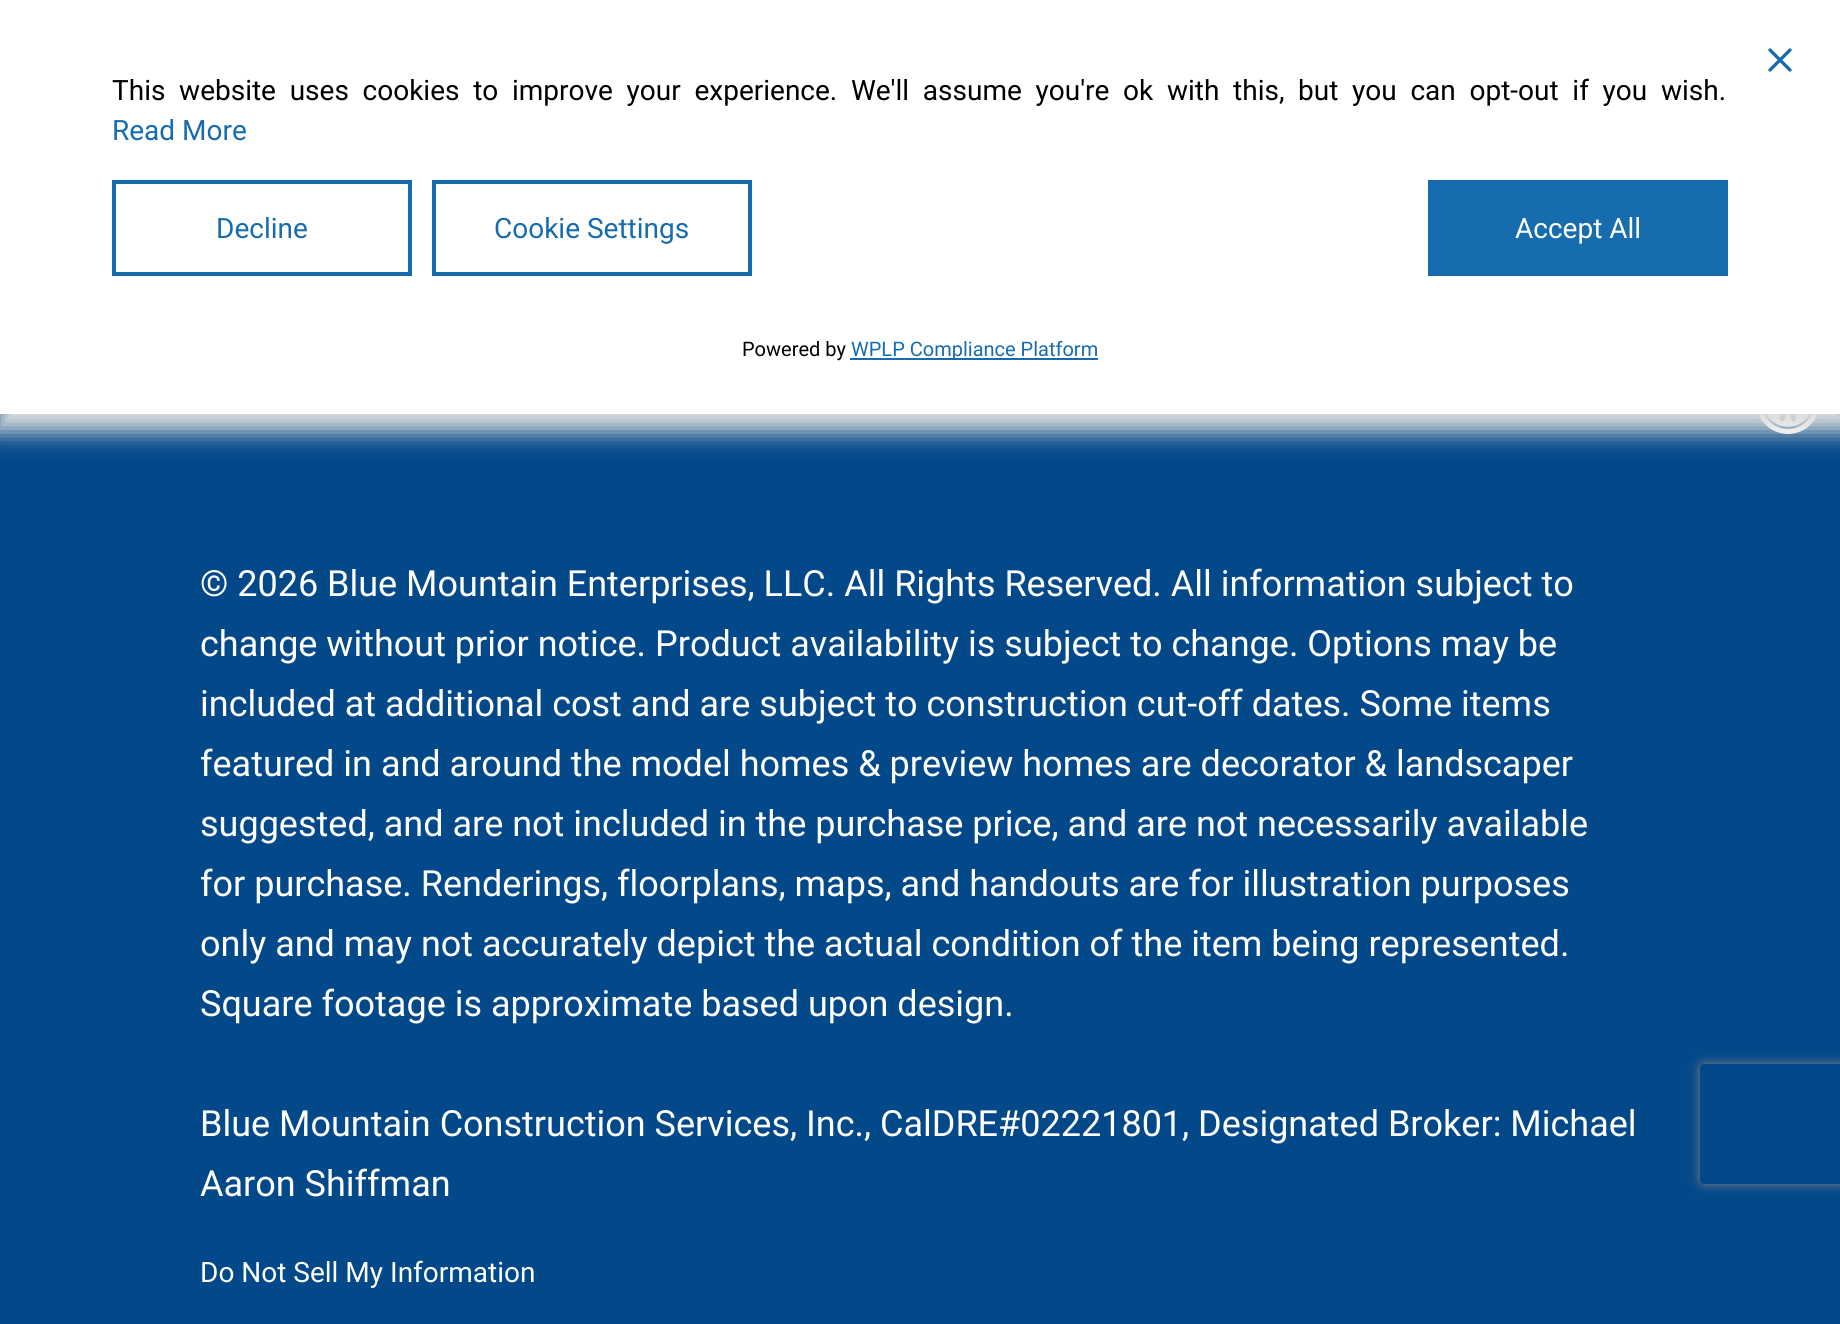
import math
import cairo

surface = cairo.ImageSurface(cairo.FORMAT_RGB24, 1840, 1324)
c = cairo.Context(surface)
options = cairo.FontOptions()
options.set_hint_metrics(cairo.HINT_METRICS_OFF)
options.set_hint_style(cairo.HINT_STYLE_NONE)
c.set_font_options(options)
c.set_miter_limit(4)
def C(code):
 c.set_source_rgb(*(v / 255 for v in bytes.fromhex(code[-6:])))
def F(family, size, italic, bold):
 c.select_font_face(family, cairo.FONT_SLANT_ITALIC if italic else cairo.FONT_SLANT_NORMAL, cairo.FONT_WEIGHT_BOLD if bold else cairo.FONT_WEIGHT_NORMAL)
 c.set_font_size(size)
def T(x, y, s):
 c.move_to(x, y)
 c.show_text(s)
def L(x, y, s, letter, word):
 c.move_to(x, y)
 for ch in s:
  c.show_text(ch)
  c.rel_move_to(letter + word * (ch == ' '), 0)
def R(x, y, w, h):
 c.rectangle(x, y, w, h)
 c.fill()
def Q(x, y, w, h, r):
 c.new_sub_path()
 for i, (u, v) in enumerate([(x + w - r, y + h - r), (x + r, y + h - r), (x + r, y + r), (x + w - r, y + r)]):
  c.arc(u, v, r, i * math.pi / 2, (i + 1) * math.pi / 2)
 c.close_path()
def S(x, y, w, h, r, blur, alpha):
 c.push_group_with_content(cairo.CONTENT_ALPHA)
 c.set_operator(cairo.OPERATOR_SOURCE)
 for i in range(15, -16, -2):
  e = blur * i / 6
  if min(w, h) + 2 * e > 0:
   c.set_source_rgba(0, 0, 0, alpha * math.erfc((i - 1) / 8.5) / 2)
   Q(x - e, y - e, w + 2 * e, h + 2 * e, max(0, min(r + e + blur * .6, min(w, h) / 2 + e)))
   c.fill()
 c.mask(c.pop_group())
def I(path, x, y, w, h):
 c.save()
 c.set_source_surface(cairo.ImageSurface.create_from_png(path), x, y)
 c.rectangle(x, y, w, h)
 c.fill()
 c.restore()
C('034989')
c.paint()
I('2.png',1758,414,60,20)
C('dddddd')
S(-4,2,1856,430,0,11,1)
C('ffffff')
R(0,0,1840,414)
I('1.png',1768,48,24,24)
F('Roboto',28,0,0)
C('000000')
L(112,100,'This website uses cookies to improve your experience. We\'ll assume you\'re ok with this, but you can opt-out if you wish.',0,6.75)
C('176cae')
T(112,140,'Read More')
c.rectangle(114,182,296,92)
c.set_line_width(4)
c.stroke()
T(216,238,'Decline')
c.rectangle(434,182,316,92)
c.stroke()
T(494,238,'Cookie Settings')
R(1428,180,300,96)
C('ffffff')
T(1515,238,'Accept All')
F('Roboto',20,0,0)
C('000000')
T(742,356,'Powered by')
C('176cae')
R(850,358,248,2)
T(851,356,'WPLP Compliance Platform')
F('Roboto',36,0,0)
C('ffffff')
T(200,596,'© 2026 Blue Mountain Enterprises, LLC. All Rights Reserved. All information subject to')
T(200,656,'change without prior notice. Product availability is subject to change. Options may be')
T(200,716,'included at additional cost and are subject to construction cut-off dates. Some items')
T(200,776,'featured in and around the model homes & preview homes are decorator & landscaper')
T(200,836,'suggested, and are not included in the purchase price, and are not necessarily available')
T(200,896,'for purchase. Renderings, floorplans, maps, and handouts are for illustration purposes')
T(200,956,'only and may not accurately depict the actual condition of the item being represented.')
T(200,1016,'Square footage is approximate based upon design.')
T(200,1136,'Blue Mountain Construction Services, Inc., CalDRE#02221801, Designated Broker: Michael')
T(200,1196,'Aaron Shiffman')
F('Roboto',28,0,0)
T(200,1282,'Do Not Sell My Information')
c.save()
c.set_fill_rule(cairo.FILL_RULE_EVEN_ODD)
c.new_path()
c.move_to(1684,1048)
c.line_to(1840,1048)
c.line_to(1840,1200)
c.line_to(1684,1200)
c.close_path()
c.move_to(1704,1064)
c.line_to(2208,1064)
c.curve_to(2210,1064,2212,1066,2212,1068)
c.line_to(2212,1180)
c.curve_to(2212,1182,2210,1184,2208,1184)
c.line_to(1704,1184)
c.curve_to(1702,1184,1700,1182,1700,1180)
c.line_to(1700,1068)
c.curve_to(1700,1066,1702,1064,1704,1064)
c.close_path()
c.clip()
C('808080')
S(1700,1064,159,120,4,5,1)
c.restore()
surface.write_to_png('o.png')
